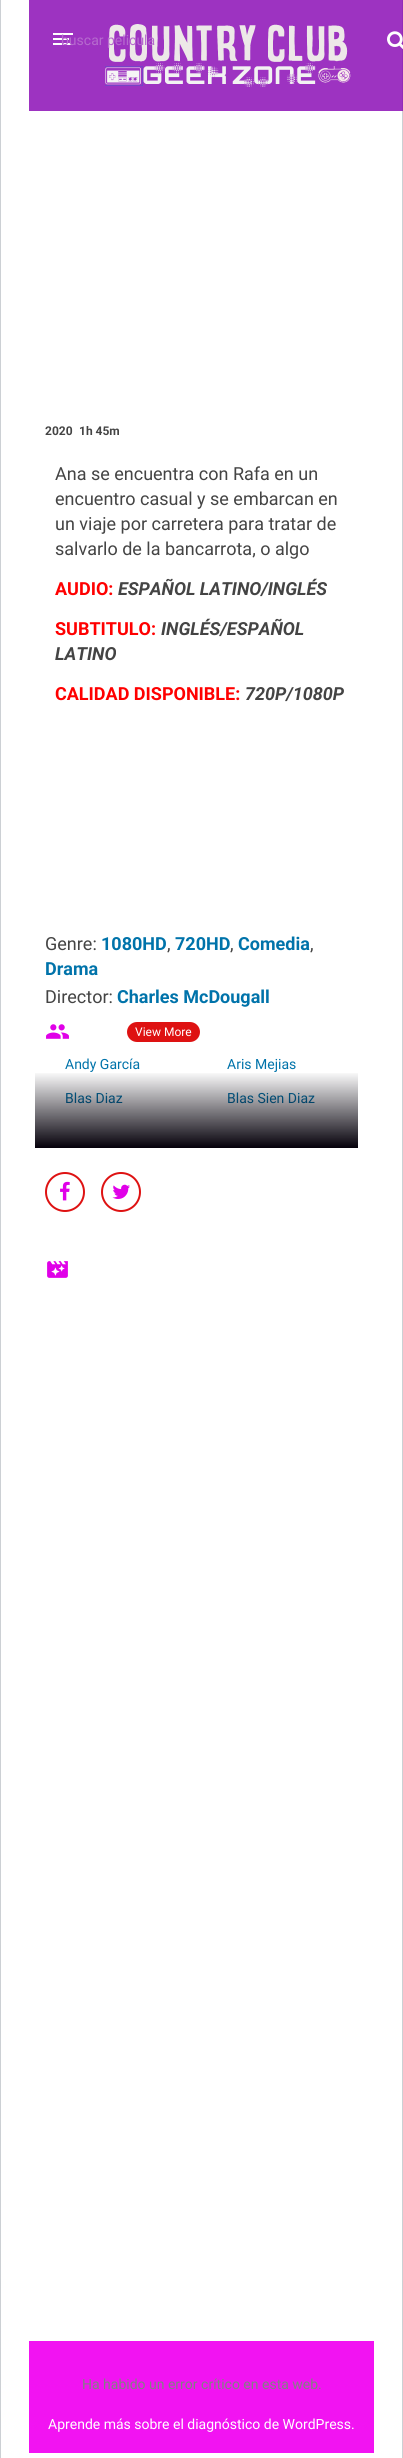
import math
import cairo

surface = cairo.ImageSurface(cairo.FORMAT_RGB24, 403, 2458)
c = cairo.Context(surface)
options = cairo.FontOptions()
options.set_hint_metrics(cairo.HINT_METRICS_OFF)
options.set_hint_style(cairo.HINT_STYLE_NONE)
c.set_font_options(options)
c.set_miter_limit(4)
def C(code):
 c.set_source_rgb(*(v / 255 for v in bytes.fromhex(code[-6:])))
def F(family, size, italic, bold):
 c.select_font_face(family, cairo.FONT_SLANT_ITALIC if italic else cairo.FONT_SLANT_NORMAL, cairo.FONT_WEIGHT_BOLD if bold else cairo.FONT_WEIGHT_NORMAL)
 c.set_font_size(size)
def T(x, y, s):
 c.move_to(x, y)
 c.show_text(s)
def R(x, y, w, h):
 c.rectangle(x, y, w, h)
 c.fill()
def Q(x, y, w, h, r):
 c.new_sub_path()
 for i, (u, v) in enumerate([(x + w - r, y + h - r), (x + r, y + h - r), (x + r, y + r), (x + w - r, y + r)]):
  c.arc(u, v, r, i * math.pi / 2, (i + 1) * math.pi / 2)
 c.close_path()
def I(path, x, y, w, h):
 c.save()
 c.set_source_surface(cairo.ImageSurface.create_from_png(path), x, y)
 c.rectangle(x, y, w, h)
 c.fill()
 c.restore()
C('ffffff')
c.paint()
c.rectangle(.5,-.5,402,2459)
C('ccd0d4')
c.set_line_width(1)
c.stroke()
c.set_source_rgba(0.522,0,0.698,0.8)
R(29,0,374,111)
C('ffffff')
R(53,33,20,2)
R(53,38,16,2)
R(53,43,18,2)
I('1.png',105,24,246,63)
F('Roboto',14,0,0)
C('b66ace')
T(61,45,'buscar pelicula')
I('2.png',387,31,16,19)
F('Roboto',12,0,1)
C('444444')
T(45,435,'2020')
T(79,435,'1h 45m')
F('Roboto',18,0,0)
T(55,480,'Ana se encuentra con Rafa en un')
T(55,505,'encuentro casual y se embarcan en')
T(55,530,'un viaje por carretera para tratar de')
T(55,555,'salvarlo de la bancarrota, o algo')
F('Roboto',18,0,1)
C('ff0000')
T(55,595,'AUDIO:')
F('Roboto',18,1,1)
C('444444')
T(118,595,'ESPAÑOL LATINO/INGLÉS')
F('Roboto',18,0,1)
C('ff0000')
T(55,635,'SUBTITULO:')
F('Roboto',18,1,1)
C('444444')
T(161,635,'INGLÉS/ESPAÑOL')
T(55,660,'LATINO')
F('Roboto',18,0,1)
C('ff0000')
T(55,700,'CALIDAD DISPONIBLE:')
F('Roboto',18,1,1)
C('444444')
T(245,700,'720P/1080P')
F('Roboto',18,0,0)
T(45,950,'Genre:')
F('Roboto',18,0,1)
C('0073aa')
T(101,950,'1080HD')
F('Roboto',18,0,0)
C('444444')
T(167,950,',')
F('Roboto',18,0,1)
C('0073aa')
T(175,950,'720HD')
F('Roboto',18,0,0)
C('444444')
T(230,950,',')
F('Roboto',18,0,1)
C('0073aa')
T(238,950,'Comedia')
F('Roboto',18,0,0)
C('444444')
T(310,950,',')
F('Roboto',18,0,1)
C('0073aa')
T(45,975,'Drama')
F('Roboto',18,0,0)
C('444444')
T(45,1003,'Director:')
F('Roboto',18,0,1)
C('0073aa')
T(117,1003,'Charles McDougall')
I('3.png',46,1024,23,15)
C('de1212')
Q(127,1022,73,20,10)
c.fill()
F('Roboto',12,0,0)
C('ffffff')
T(135,1036,'View More')
F('Roboto',14,0,0)
C('0073aa')
T(65,1069,'Andy García')
T(227,1069,'Aris Mejias')
T(65,1103,'Blas Diaz')
T(227,1103,'Blas Sien Diaz')
gradient = cairo.LinearGradient(197,1071,197,1148)
gradient.add_color_stop_rgba(0,0.016,0,0.039,0)
gradient.add_color_stop_rgba(1,0.016,0,0.039,1)
c.set_source(gradient)
R(35,1073,323,75)
c.new_path()
c.arc(65,1192,19,0,2 * math.pi)
C('de1212')
c.set_line_width(2)
c.stroke()
I('4.png',60,1181,10,20)
c.arc(121,1192,19,0,2 * math.pi)
c.stroke()
I('5.png',112,1184,18,15)
I('6.png',47,1261,21,17)
C('f213f2')
R(29,2341,345,112)
C('818083')
T(82,2389,'Ha habido un error crítico en esta web.')
C('ffffff')
T(48,2429,'Aprende más sobre el diagnóstico de WordPress.')
surface.write_to_png('o.png')
